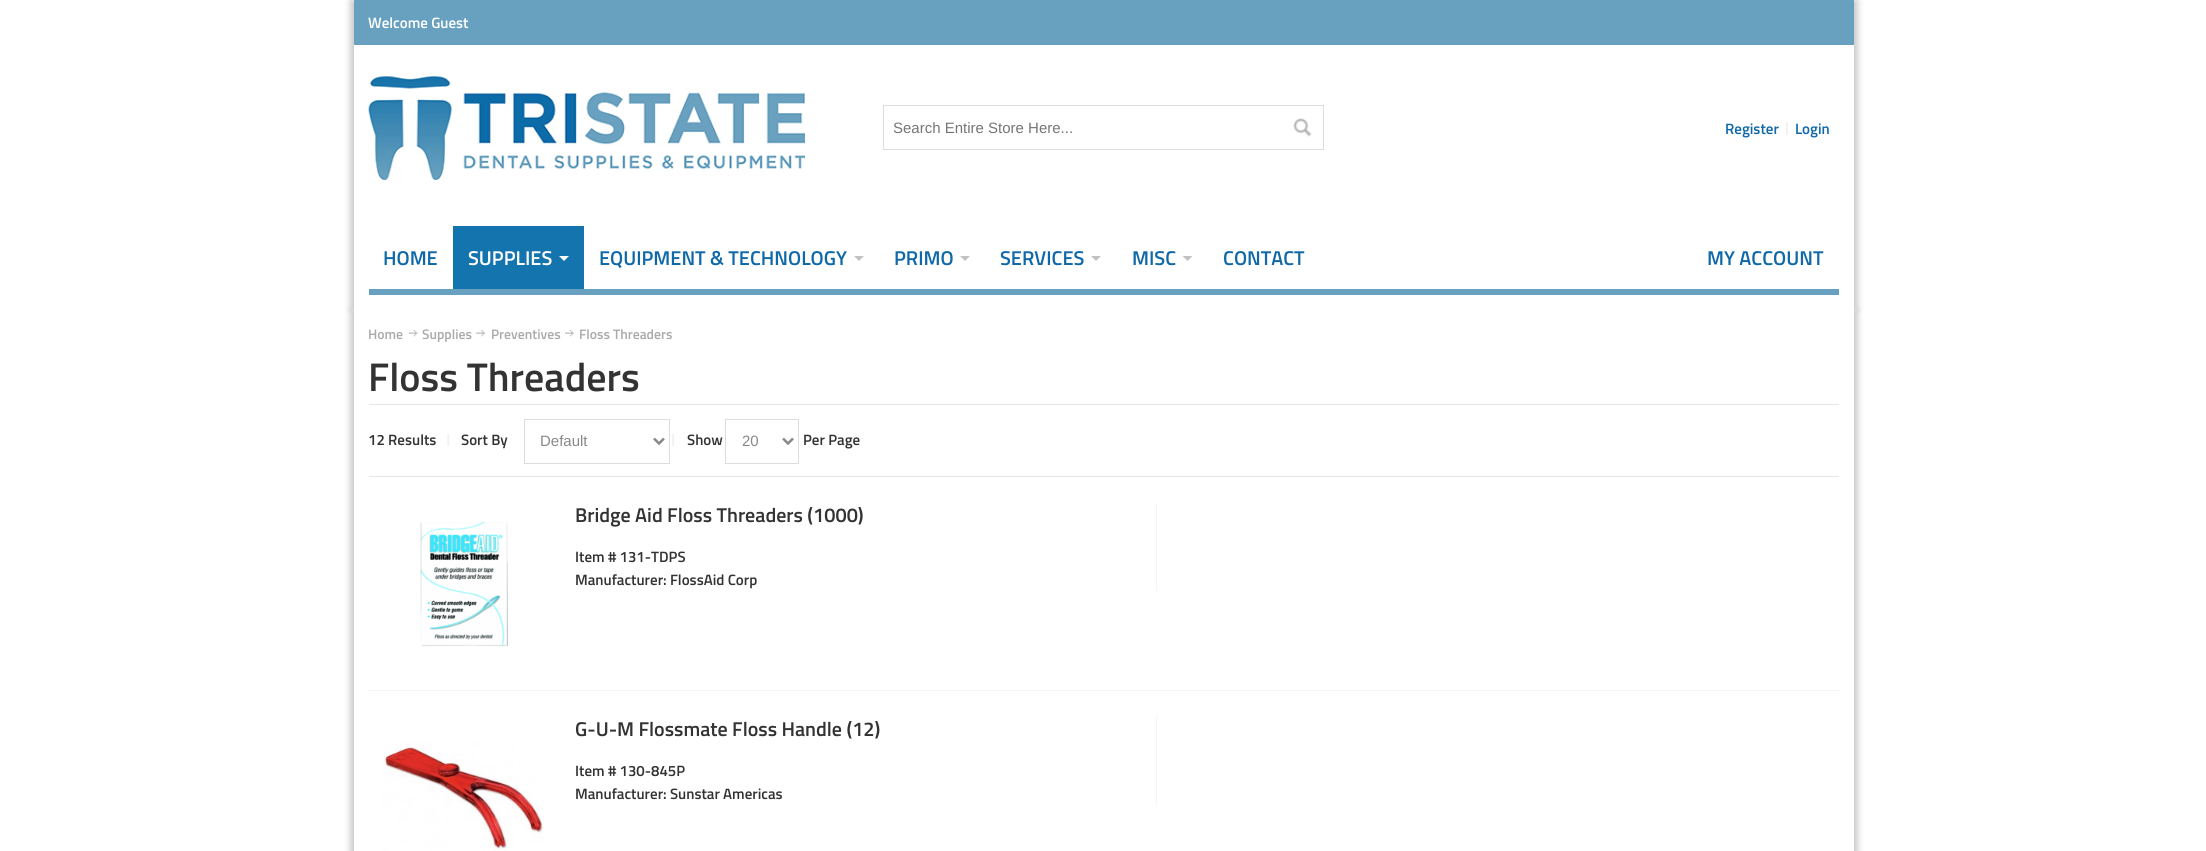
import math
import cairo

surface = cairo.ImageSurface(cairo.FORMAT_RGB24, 2206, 851)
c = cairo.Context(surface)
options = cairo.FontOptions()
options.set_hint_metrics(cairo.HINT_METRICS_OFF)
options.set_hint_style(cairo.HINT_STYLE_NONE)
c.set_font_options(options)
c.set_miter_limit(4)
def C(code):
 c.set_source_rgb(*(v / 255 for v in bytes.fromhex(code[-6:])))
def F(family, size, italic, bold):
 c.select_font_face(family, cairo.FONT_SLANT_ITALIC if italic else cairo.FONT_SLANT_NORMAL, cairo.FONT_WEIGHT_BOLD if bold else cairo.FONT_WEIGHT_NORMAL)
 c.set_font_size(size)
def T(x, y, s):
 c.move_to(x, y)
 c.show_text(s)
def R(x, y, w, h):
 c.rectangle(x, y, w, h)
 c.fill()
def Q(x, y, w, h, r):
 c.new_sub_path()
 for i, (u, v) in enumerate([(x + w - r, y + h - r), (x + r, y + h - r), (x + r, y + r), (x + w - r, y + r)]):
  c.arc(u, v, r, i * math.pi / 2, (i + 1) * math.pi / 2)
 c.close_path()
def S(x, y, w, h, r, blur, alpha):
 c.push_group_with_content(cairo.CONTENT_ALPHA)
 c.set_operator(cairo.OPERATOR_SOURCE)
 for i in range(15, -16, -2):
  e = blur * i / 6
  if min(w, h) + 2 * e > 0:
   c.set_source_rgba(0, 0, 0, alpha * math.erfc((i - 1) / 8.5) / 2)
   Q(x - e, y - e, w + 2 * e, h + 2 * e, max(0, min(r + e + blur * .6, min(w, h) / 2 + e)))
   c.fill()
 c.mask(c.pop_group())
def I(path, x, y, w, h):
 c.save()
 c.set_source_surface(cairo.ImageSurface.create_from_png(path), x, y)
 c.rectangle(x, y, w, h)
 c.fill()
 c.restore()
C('ffffff')
c.paint()
C('cccccc')
S(350,0,1500,310,0,3,1)
S(358,0,1500,310,0,3,1)
C('ffffff')
R(354,45,1500,254)
C('68a1c0')
R(354,0,1500,45)
F('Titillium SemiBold',15,0,0)
C('ffffff')
T(368,28,'Welcome Guest')
I('1.png',368,76,437,105)
c.rectangle(883.5,105.5,440,44)
C('dddddd')
c.set_line_width(1)
c.stroke()
F('Liberation Sans',15,0,0)
C('757575')
T(893,133,'Search Entire Store Here...')
I('2.png',1293,118,19,19)
F('Titillium SemiBold',15,0,0)
C('0f68a8')
T(1725,134,'Register')
I('3.png',1786,122,2,13)
T(1795,134,'Login')
C('68a1c0')
R(369,289,1470,6)
F('Titillium SemiBold',20,0,0)
C('0f68a8')
T(383,265,'HOME')
C('1474ad')
R(453,226,131,63)
C('ffffff')
T(468,265,'SUPPLIES')
c.new_path()
c.move_to(559,256)
c.line_to(569,256)
c.line_to(564,261)
c.close_path()
c.fill()
C('0f68a8')
T(599,265,'EQUIPMENT & TECHNOLOGY')
C('c2c2c2')
c.new_path()
c.move_to(854,256)
c.line_to(864,256)
c.line_to(859,261)
c.close_path()
c.fill()
C('0f68a8')
T(894,265,'PRIMO')
C('c2c2c2')
c.new_path()
c.move_to(960,256)
c.line_to(970,256)
c.line_to(965,261)
c.close_path()
c.fill()
C('0f68a8')
T(1000,265,'SERVICES')
C('c2c2c2')
c.new_path()
c.move_to(1091,256)
c.line_to(1101,256)
c.line_to(1096,261)
c.close_path()
c.fill()
C('0f68a8')
T(1132,265,'MISC')
C('c2c2c2')
c.new_path()
c.move_to(1182.5,256)
c.line_to(1192.5,256)
c.line_to(1187.5,261)
c.close_path()
c.fill()
C('0f68a8')
T(1223,265,'CONTACT')
T(1707,265,'MY ACCOUNT')
C('cccccc')
S(350,310,1500,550,0,3,1)
S(358,310,1500,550,0,3,1)
C('ffffff')
c.new_path()
c.move_to(354,299)
c.line_to(354,310)
c.line_to(1854,310)
c.line_to(1854,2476)
c.line_to(1854,299)
c.close_path()
c.fill()
R(354,310,1500,541)
F('Titillium SemiBold',13.75,0,0)
C('aaaaaa')
T(368,339,'Home')
I('4.png',408,330,10,7)
T(422,339,'Supplies')
I('5.png',476,330,9,7)
T(491,339,'Preventives')
I('6.png',565,330,9,7)
T(579,339,'Floss Threaders')
C('e5e5e5')
R(369,404,1470,1)
F('Titillium SemiBold',40,0,0)
C('333333')
T(368,391,'Floss Threaders')
C('e5e5e5')
R(369,476,1470,1)
I('7.png',447,434,2,12)
F('Titillium SemiBold',15,0,0)
C('333333')
T(368,445,'12 Results')
I('7.png',672,434,2,12)
T(461,445,'Sort By')
c.rectangle(524.5,419.5,145,44)
C('dddddd')
c.stroke()
c.new_path()
c.move_to(654,438.5)
c.line_to(659,443.5)
c.line_to(664,438.5)
C('888888')
c.set_line_width(2.5)
c.stroke()
F('Liberation Sans',15,0,0)
T(540,446,'Default')
F('Titillium SemiBold',15,0,0)
C('333333')
T(687,445,'Show')
c.rectangle(725.5,419.5,73,44)
C('dddddd')
c.set_line_width(1)
c.stroke()
c.new_path()
c.move_to(783,438.5)
c.line_to(788,443.5)
c.line_to(793,438.5)
C('888888')
c.set_line_width(2.5)
c.stroke()
F('Liberation Sans',15,0,0)
T(742,446,'20')
F('Titillium SemiBold',15,0,0)
C('333333')
T(803,445,'Per Page')
I('8.png',420,522,88,125)
C('f5f5f5')
R(1156,503,1,88)
F('Titillium SemiBold',20,0,0)
C('333333')
T(575,522,'Bridge Aid Floss Threaders (1000)')
F('Titillium SemiBold',15,0,0)
T(575,562,'Item # 131-TDPS')
T(575,585,'Manufacturer: FlossAid Corp')
C('f5f5f5')
R(369,690,1470,1)
I('9.png',382,741,162,110)
R(1156,716,1,89)
F('Titillium SemiBold',20,0,0)
C('333333')
T(575,736,'G-U-M Flossmate Floss Handle (12)')
F('Titillium SemiBold',15,0,0)
T(575,776,'Item # 130-845P')
T(575,799,'Manufacturer: Sunstar Americas')
surface.write_to_png('o.png')
